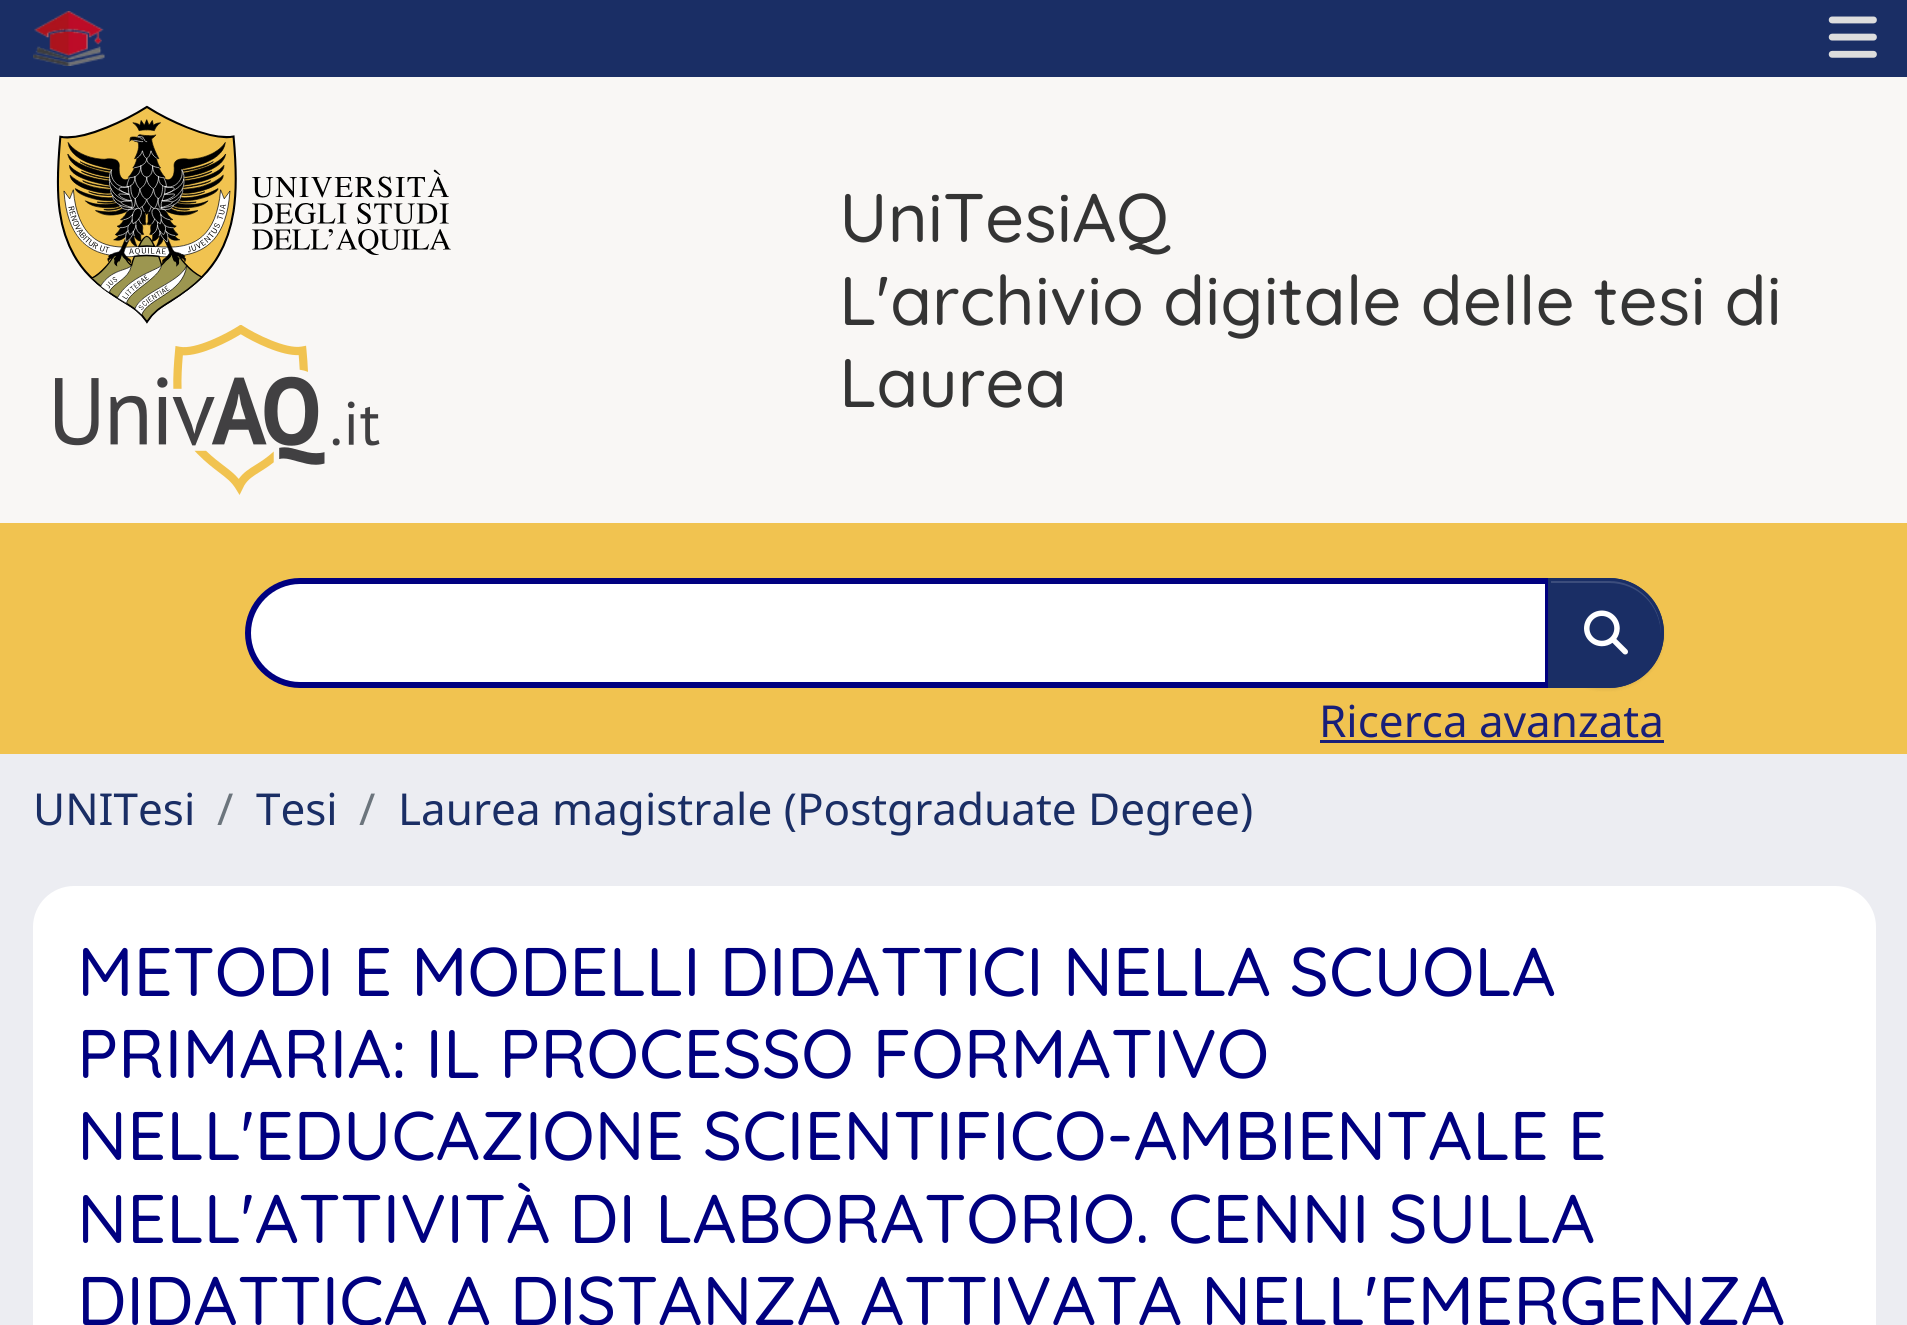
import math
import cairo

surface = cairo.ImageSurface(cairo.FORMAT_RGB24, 1907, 1325)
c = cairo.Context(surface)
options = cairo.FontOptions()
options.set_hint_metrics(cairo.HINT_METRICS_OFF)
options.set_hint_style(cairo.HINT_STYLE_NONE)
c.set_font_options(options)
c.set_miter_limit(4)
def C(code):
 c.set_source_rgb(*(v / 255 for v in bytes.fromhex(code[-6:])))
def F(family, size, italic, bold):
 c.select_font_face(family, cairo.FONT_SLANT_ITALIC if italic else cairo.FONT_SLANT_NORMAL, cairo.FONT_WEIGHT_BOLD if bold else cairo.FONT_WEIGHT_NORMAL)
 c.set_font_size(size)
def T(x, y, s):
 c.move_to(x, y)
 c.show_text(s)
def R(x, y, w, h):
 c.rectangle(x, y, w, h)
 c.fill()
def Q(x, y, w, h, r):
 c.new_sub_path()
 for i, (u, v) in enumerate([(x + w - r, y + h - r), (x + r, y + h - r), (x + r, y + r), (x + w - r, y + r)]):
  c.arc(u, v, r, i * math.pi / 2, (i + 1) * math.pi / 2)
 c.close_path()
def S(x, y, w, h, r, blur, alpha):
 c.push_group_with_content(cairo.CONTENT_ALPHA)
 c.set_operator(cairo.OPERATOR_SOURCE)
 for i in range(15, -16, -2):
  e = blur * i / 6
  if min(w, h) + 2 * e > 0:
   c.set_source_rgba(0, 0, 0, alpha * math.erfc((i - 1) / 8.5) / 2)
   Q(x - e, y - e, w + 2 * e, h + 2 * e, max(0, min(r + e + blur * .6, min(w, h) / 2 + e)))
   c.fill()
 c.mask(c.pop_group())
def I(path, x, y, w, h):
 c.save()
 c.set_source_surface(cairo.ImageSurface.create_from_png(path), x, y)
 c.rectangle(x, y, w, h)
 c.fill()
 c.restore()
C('ecedf2')
c.paint()
C('1a2e65')
R(0,0,1907,77)
I('1.png',33,11,72,55)
I('2.png',1828,16,49,42)
C('f9f7f5')
R(0,77,1907,446)
I('3.png',56,105,395,219)
I('4.png',55,325,325,170)
F('Quicksand Medium',68.65,0,0)
C('343434')
T(839,242,'UniTesiAQ')
T(839,325,'L\'archivio digitale delle tesi di')
T(839,407,'Laurea')
C('f1c350')
R(0,523,1907,231)
C('ffffff')
c.new_path()
c.move_to(300,581)
c.line_to(1548,581)
c.line_to(1548,685)
c.line_to(300,685)
c.curve_to(271.5,685,248,661.5,248,633)
c.curve_to(248,604.5,271.5,581,300,581)
c.close_path()
c.fill_preserve()
C('000080')
c.set_line_width(6)
c.stroke()
C('000000')
S(1548,580,116,110,55,1.5,.07)
C('1a2e65')
c.new_path()
c.move_to(1548,578)
c.line_to(1609,578)
c.curve_to(1639.5,578,1664,602.5,1664,633)
c.curve_to(1664,663.5,1639.5,688,1609,688)
c.line_to(1548,688)
c.close_path()
c.fill()
C('3c4d7c')
c.new_path()
c.move_to(1551,583)
c.line_to(1609,583)
c.curve_to(1638,583,1660,605,1661,634)
c.line_to(1661,632)
c.curve_to(1661,604,1637,580,1608,580)
c.line_to(1551,580)
c.close_path()
c.fill()
c.new_path()
c.move_to(1549.5,579.5)
c.line_to(1609,579.5)
c.curve_to(1638.5,579.5,1662.5,603.5,1662.5,633)
c.curve_to(1662.5,662.5,1638.5,686.5,1609,686.5)
c.line_to(1549.5,686.5)
c.close_path()
C('1a2e65')
c.set_line_width(3)
c.stroke()
I('5.png',1584,610,44,45)
F('Noto Sans',44,0,0)
C('191f79')
T(1319,737,'Ricerca avanzata')
R(1320,740,344,3)
C('1a2e65')
T(33,825,'UNITesi')
C('6c757d')
T(217,825,'/')
C('1a2e65')
T(256,825,'Tesi')
C('6c757d')
T(359,825,'/')
C('1a2e65')
T(398,825,'Laurea magistrale (Postgraduate Degree)')
C('ffffff')
Q(33,886,1843,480,41)
c.fill()
F('Quicksand Medium',68.65,0,0)
C('000080')
T(77,996,'METODI E MODELLI DIDATTICI NELLA SCUOLA')
T(77,1078,'PRIMARIA: IL PROCESSO FORMATIVO')
T(77,1160,'NELL\'EDUCAZIONE SCIENTIFICO-AMBIENTALE E')
T(77,1243,'NELL\'ATTIVITÀ DI LABORATORIO.')
T(1168,1243,'CENNI SULLA')
T(77,1325,'DIDATTICA A DISTANZA ATTIVATA NELL\'EMERGENZA')
surface.write_to_png('o.png')
